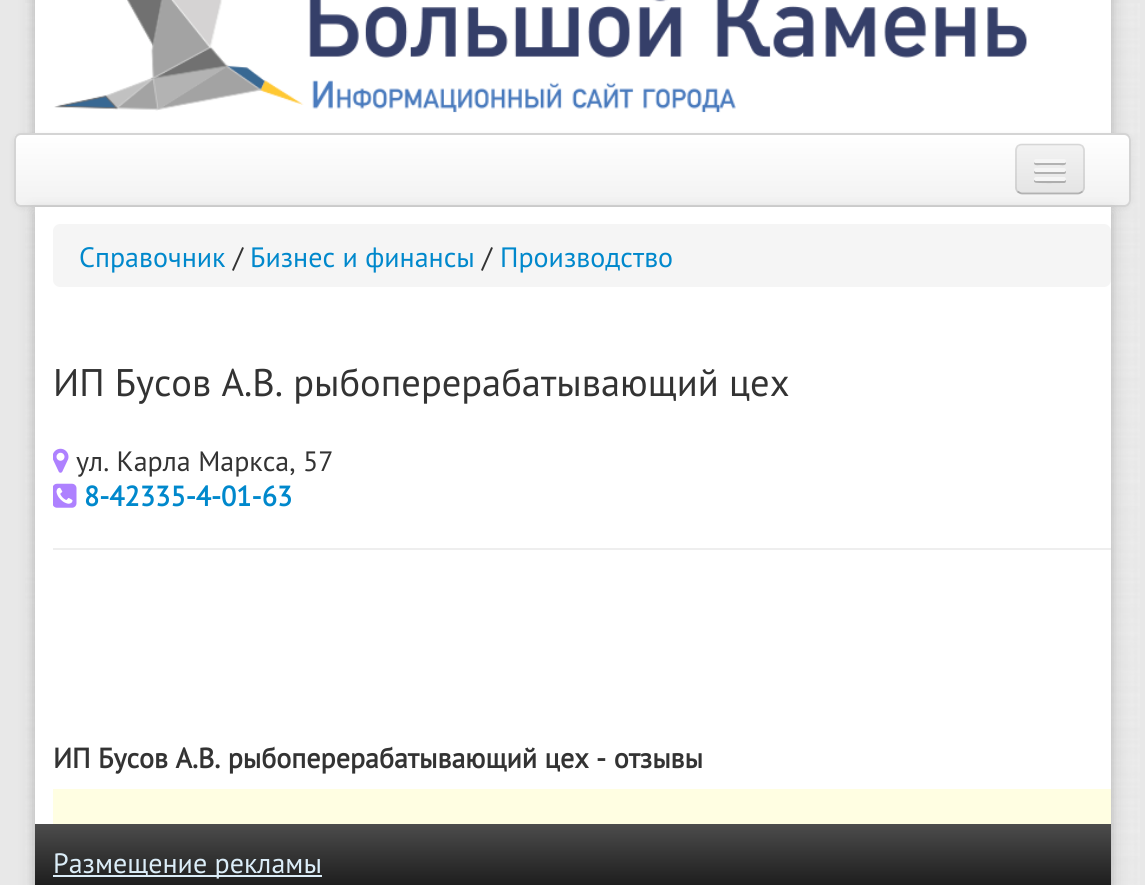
import math
import cairo

surface = cairo.ImageSurface(cairo.FORMAT_RGB24, 1145, 885)
c = cairo.Context(surface)
options = cairo.FontOptions()
options.set_hint_metrics(cairo.HINT_METRICS_OFF)
options.set_hint_style(cairo.HINT_STYLE_NONE)
c.set_font_options(options)
c.set_miter_limit(4)
def C(code):
 c.set_source_rgb(*(v / 255 for v in bytes.fromhex(code[-6:])))
def F(family, size, italic, bold):
 c.select_font_face(family, cairo.FONT_SLANT_ITALIC if italic else cairo.FONT_SLANT_NORMAL, cairo.FONT_WEIGHT_BOLD if bold else cairo.FONT_WEIGHT_NORMAL)
 c.set_font_size(size)
def T(x, y, s):
 c.move_to(x, y)
 c.show_text(s)
def R(x, y, w, h):
 c.rectangle(x, y, w, h)
 c.fill()
def Q(x, y, w, h, r):
 c.new_sub_path()
 for i, (u, v) in enumerate([(x + w - r, y + h - r), (x + r, y + h - r), (x + r, y + r), (x + w - r, y + r)]):
  c.arc(u, v, r, i * math.pi / 2, (i + 1) * math.pi / 2)
 c.close_path()
def S(x, y, w, h, r, blur, alpha):
 c.push_group_with_content(cairo.CONTENT_ALPHA)
 c.set_operator(cairo.OPERATOR_SOURCE)
 for i in range(15, -16, -2):
  e = blur * i / 6
  if min(w, h) + 2 * e > 0:
   c.set_source_rgba(0, 0, 0, alpha * math.erfc((i - 1) / 8.5) / 2)
   Q(x - e, y - e, w + 2 * e, h + 2 * e, max(0, min(r + e + blur * .6, min(w, h) / 2 + e)))
   c.fill()
 c.mask(c.pop_group())
def I(path, x, y, w, h):
 c.save()
 c.set_source_surface(cairo.ImageSurface.create_from_png(path), x, y)
 c.rectangle(x, y, w, h)
 c.fill()
 c.restore()
C('e8e8e8')
c.paint()
I('1.png',25,3,1115,882)
C('000000')
S(33,-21,1080,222,0,7,.2)
C('ffffff')
R(35,0,1076,133)
I('2.png',54,0,973,113)
C('000000')
S(14,135,1117,73,7,3.5,.07)
c.save()
Q(14,133,1117,74,7)
c.clip()
gradient = cairo.LinearGradient(572,135,572,205)
gradient.add_color_stop_rgba(0,1,1,1,1)
gradient.add_color_stop_rgba(1,0.949,0.949,0.949,1)
c.set_source(gradient)
R(14,135,1117,70)
c.restore()
Q(15,134,1115,72,6)
C('d4d4d4')
c.stroke()
C('000000')
S(33,212,1080,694,0,7,.2)
C('ededed')
Q(1015,144,70,50,7)
c.fill()
c.save()
Q(1015,144,70,50,7)
c.clip()
gradient = cairo.LinearGradient(1050,145,1050,193)
gradient.add_color_stop_rgba(0,0.949,0.949,0.949,1)
gradient.add_color_stop_rgba(1,0.898,0.898,0.898,1)
c.set_source(gradient)
R(1015,145,70,48)
c.restore()
c.new_path()
c.move_to(1082.5,191.5)
c.curve_to(1081,192.5,1079.5,193.5,1078,193.5)
c.line_to(1022,193.5)
c.curve_to(1020.5,193.5,1019,192.5,1017.5,191.5)
c.set_source_rgba(0,0,0,0.25)
c.set_line_width(1.8)
c.stroke()
c.new_path()
c.move_to(1017.5,191.5)
c.curve_to(1016.5,190.5,1016,189,1016,187)
c.line_to(1016,150.5)
c.curve_to(1016,149,1016.5,147.5,1017.5,146)
c.curve_to(1019,145,1020.5,144.5,1022,144.5)
c.line_to(1078,144.5)
c.curve_to(1079.5,144.5,1081,145,1082.5,146)
c.curve_to(1083.5,147.5,1084,149,1084,150.5)
c.line_to(1084,187)
c.curve_to(1084,189,1083.5,190.5,1082.5,191.5)
c.set_source_rgba(0,0,0,0.1)
c.stroke()
C('b2b2b2')
c.new_path()
c.move_to(1034.5,162)
c.line_to(1034,163.5)
c.curve_to(1034.5,166,1039.5,165,1040.5,165)
c.line_to(1059.5,165)
c.curve_to(1060.5,165,1065.5,166,1066,163.5)
c.line_to(1065.5,162)
c.curve_to(1065.5,162.5,1064.5,163,1064,163)
c.line_to(1036,163)
c.curve_to(1035.5,163,1034.5,162.5,1034.5,162)
c.close_path()
c.fill()
C('f5f5f5')
Q(1034,159,32,4,2)
c.fill()
C('b0b0b0')
c.new_path()
c.move_to(1034.5,170.5)
c.curve_to(1033.5,172,1034,173.5,1035.5,174)
c.line_to(1064.5,174)
c.curve_to(1066,173.5,1066.5,172,1065.5,170.5)
c.line_to(1064,171.5)
c.line_to(1036,171.5)
c.close_path()
c.fill()
C('f5f5f5')
Q(1034,168,32,4,2)
c.fill()
C('aeaeae')
c.new_path()
c.move_to(1034.5,179.5)
c.curve_to(1033.5,180.5,1034,182,1035,182.5)
c.curve_to(1036,183.5,1060.5,183,1064,183)
c.curve_to(1066,183,1066.5,181,1065.5,179.5)
c.line_to(1064,180)
c.line_to(1036,180)
c.close_path()
c.fill()
C('f5f5f5')
Q(1034,177,32,4,2)
c.fill()
C('ffffff')
R(35,207,1076,617)
C('f5f5f5')
Q(53,224,1058,63,7)
c.fill()
F('PT Sans',28,0,0)
C('0088cc')
T(79,267,'Справочник')
C('333333')
T(233,267,'/')
C('0088cc')
T(250,267,'Бизнес и финансы')
C('333333')
T(482,267,'/')
C('0088cc')
T(500,267,'Производство')
F('PT Sans',38.5,0,0)
C('333333')
T(53,396,'ИП Бусов А.В. рыбоперерабатывающий цех')
I('3.png',53,448,16,25)
F('PT Sans',28,0,0)
T(76,471,'ул. Карла Маркса, 57')
I('4.png',53,483,24,25)
F('PT Sans',28,0,1)
C('0088cc')
T(84,506,'8-42335-4-01-63')
C('eeeeee')
R(53,548,1058,2)
C('333333')
T(53,768,'ИП Бусов А.В. рыбоперерабатывающий цех - отзывы')
C('fffee2')
R(53,789,1058,35)
gradient = cairo.LinearGradient(573,824,573,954)
gradient.add_color_stop_rgba(0,0.298,0.298,0.298,1)
gradient.add_color_stop_rgba(.6,0.067,0.067,0.067,1)
gradient.add_color_stop_rgba(.91,0.11,0.11,0.11,1)
gradient.add_color_stop_rgba(1,0.075,0.075,0.075,1)
c.set_source(gradient)
R(35,824,1076,61)
C('dbedf8')
R(53,875,269,2)
F('PT Sans',28,0,0)
T(53,873,'Размещение рекламы')
surface.write_to_png('o.png')
